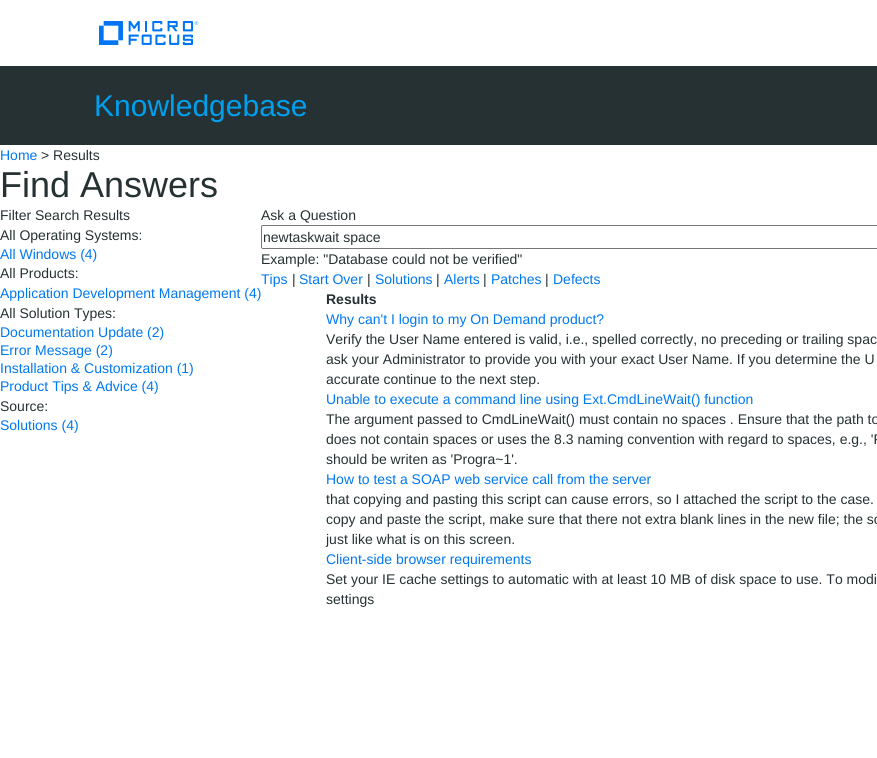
import math
import cairo

surface = cairo.ImageSurface(cairo.FORMAT_RGB24, 877, 758)
c = cairo.Context(surface)
options = cairo.FontOptions()
options.set_hint_metrics(cairo.HINT_METRICS_OFF)
options.set_hint_style(cairo.HINT_STYLE_NONE)
c.set_font_options(options)
c.set_miter_limit(4)
def C(code):
 c.set_source_rgb(*(v / 255 for v in bytes.fromhex(code[-6:])))
def F(family, size, italic, bold):
 c.select_font_face(family, cairo.FONT_SLANT_ITALIC if italic else cairo.FONT_SLANT_NORMAL, cairo.FONT_WEIGHT_BOLD if bold else cairo.FONT_WEIGHT_NORMAL)
 c.set_font_size(size)
def T(x, y, s):
 c.move_to(x, y)
 c.show_text(s)
def R(x, y, w, h):
 c.rectangle(x, y, w, h)
 c.fill()
def Q(x, y, w, h, r):
 c.new_sub_path()
 for i, (u, v) in enumerate([(x + w - r, y + h - r), (x + r, y + h - r), (x + r, y + r), (x + w - r, y + r)]):
  c.arc(u, v, r, i * math.pi / 2, (i + 1) * math.pi / 2)
 c.close_path()
def I(path, x, y, w, h):
 c.save()
 c.set_source_surface(cairo.ImageSurface.create_from_png(path), x, y)
 c.rectangle(x, y, w, h)
 c.fill()
 c.restore()
C('ffffff')
c.paint()
I('1.png',99,20,100,26)
C('263133')
R(0,66,877,79)
F('Liberation Sans',30,0,0)
C('00a0ef')
T(94,116,'Knowledgebase')
F('Liberation Sans',14,0,0)
C('0078ef')
T(0,160,'Home')
C('263133')
T(41,160,'> Results')
F('Liberation Sans',36,0,0)
T(0,197,'Find Answers')
F('Liberation Sans',14,0,0)
T(0,220,'Filter Search Results')
T(0,240,'All Operating Systems:')
C('0078ef')
T(0,259,'All Windows (4)')
C('263133')
T(0,278,'All Products:')
C('0078ef')
T(0,298,'Application Development Management (4)')
C('263133')
T(0,318,'All Solution Types:')
C('0078ef')
T(0,337,'Documentation Update (2)')
T(0,355,'Error Message (2)')
T(0,373,'Installation & Customization (1)')
T(0,391,'Product Tips & Advice (4)')
C('263133')
T(0,411,'Source:')
C('0078ef')
T(0,430,'Solutions (4)')
C('263133')
T(261,220,'Ask a Question')
Q(261.5,225.5,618,23,1.5)
C('767676')
c.set_line_width(1)
c.stroke()
C('263133')
T(263,242,'newtaskwait space')
T(261,264,'Example: "Database could not be verified"')
C('0078ef')
T(261,284,'Tips')
C('263133')
T(292,284,'|')
C('0078ef')
T(299,284,'Start Over')
C('263133')
T(367,284,'|')
C('0078ef')
T(375,284,'Solutions')
C('263133')
T(436,284,'|')
C('0078ef')
T(444,284,'Alerts')
C('263133')
T(483,284,'|')
C('0078ef')
T(491,284,'Patches')
C('263133')
T(545,284,'|')
C('0078ef')
T(553,284,'Defects')
F('Liberation Sans',14,0,1)
C('263133')
T(326,304,'Results')
F('Liberation Sans',14,0,0)
C('0078ef')
T(326,324,'Why can\'t I login to my On Demand product?')
C('263133')
T(326,344,'Verify the User Name entered is valid, i.e., spelled correctly, no preceding or trailing spac')
T(326,364,'ask your Administrator to provide you with your exact User Name. If you determine the U')
T(326,384,'accurate continue to the next step.')
C('0078ef')
T(326,404,'Unable to execute a command line using Ext.CmdLineWait() function')
C('263133')
T(326,424,'The argument passed to CmdLineWait() must contain no spaces . Ensure that the path to')
T(326,444,'does not contain spaces or uses the 8.3 naming convention with regard to spaces, e.g., \'P')
T(326,464,'should be writen as \'Progra~1\'.')
C('0078ef')
T(326,484,'How to test a SOAP web service call from the server')
C('263133')
T(326,504,'that copying and pasting this script can cause errors, so I attached the script to the case.')
T(326,524,'copy and paste the script, make sure that there not extra blank lines in the new file; the sc')
T(326,544,'just like what is on this screen.')
C('0078ef')
T(326,564,'Client-side browser requirements')
C('263133')
T(326,584,'Set your IE cache settings to automatic with at least 10 MB of disk space to use. To modi')
T(326,604,'settings')
surface.write_to_png('o.png')
